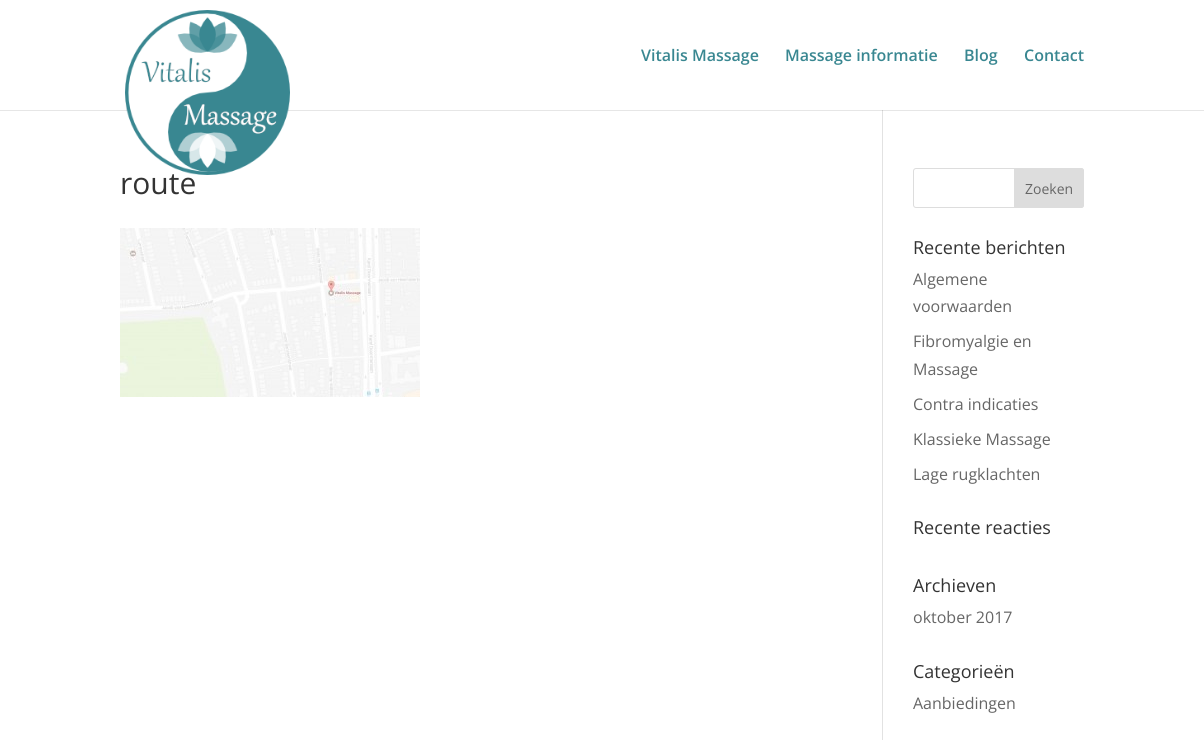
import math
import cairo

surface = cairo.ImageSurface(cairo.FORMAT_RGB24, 1204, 740)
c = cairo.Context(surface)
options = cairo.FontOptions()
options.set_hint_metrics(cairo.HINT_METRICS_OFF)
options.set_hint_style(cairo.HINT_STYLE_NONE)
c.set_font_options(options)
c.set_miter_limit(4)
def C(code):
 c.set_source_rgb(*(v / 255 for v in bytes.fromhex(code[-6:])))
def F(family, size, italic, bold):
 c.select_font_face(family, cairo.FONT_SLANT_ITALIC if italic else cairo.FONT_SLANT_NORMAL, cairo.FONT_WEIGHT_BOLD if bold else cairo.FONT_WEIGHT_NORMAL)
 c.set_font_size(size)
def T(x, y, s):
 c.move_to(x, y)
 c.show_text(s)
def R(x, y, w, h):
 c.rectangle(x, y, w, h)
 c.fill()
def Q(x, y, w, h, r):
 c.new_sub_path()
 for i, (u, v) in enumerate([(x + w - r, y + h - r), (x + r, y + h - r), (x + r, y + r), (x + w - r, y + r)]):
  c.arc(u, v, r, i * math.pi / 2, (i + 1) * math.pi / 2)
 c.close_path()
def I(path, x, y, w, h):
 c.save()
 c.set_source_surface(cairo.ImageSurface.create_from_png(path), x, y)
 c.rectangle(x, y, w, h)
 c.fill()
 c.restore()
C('ffffff')
c.paint()
C('e6e6e6')
R(0,110,1204,1)
F('Open Sans',30,0,0)
C('333333')
T(120,194,'route')
I('1.png',125,10,165,165)
F('Open Sans SemiBold',16,0,0)
C('398791')
T(641,61,'Vitalis Massage')
T(785,61,'Massage informatie')
T(964,61,'Blog')
T(1024,61,'Contact')
C('e2e2e2')
R(882,110,1,630)
C('cbcbcb')
R(882,110,1,1)
I('2.png',120,228,300,169)
Q(913.5,168.5,170,39,2.5)
C('dddddd')
c.set_line_width(1)
c.stroke()
c.new_path()
c.move_to(1014.5,168.5)
c.line_to(1081,168.5)
c.curve_to(1082.5,168.5,1083.5,169.5,1083.5,171)
c.line_to(1083.5,205)
c.curve_to(1083.5,206.5,1082.5,207.5,1081,207.5)
c.line_to(1014.5,207.5)
c.close_path()
c.fill_preserve()
c.stroke()
F('Open Sans',14,0,0)
C('666666')
T(1025,194,'Zoeken')
F('Open Sans',18,0,0)
C('333333')
T(913,254,'Recente berichten')
F('Open Sans',16,0,0)
C('666666')
T(913,285,'Algemene')
T(913,312,'voorwaarden')
T(913,347,'Fibromyalgie en')
T(913,375,'Massage')
T(913,410,'Contra indicaties')
T(913,445,'Klassieke Massage')
T(913,480,'Lage rugklachten')
F('Open Sans',18,0,0)
C('333333')
T(913,534,'Recente reacties')
T(913,592,'Archieven')
F('Open Sans',16,0,0)
C('666666')
T(913,623,'oktober 2017')
F('Open Sans',18,0,0)
C('333333')
T(913,678,'Categorieën')
F('Open Sans',16,0,0)
C('666666')
T(913,709,'Aanbiedingen')
surface.write_to_png('o.png')
